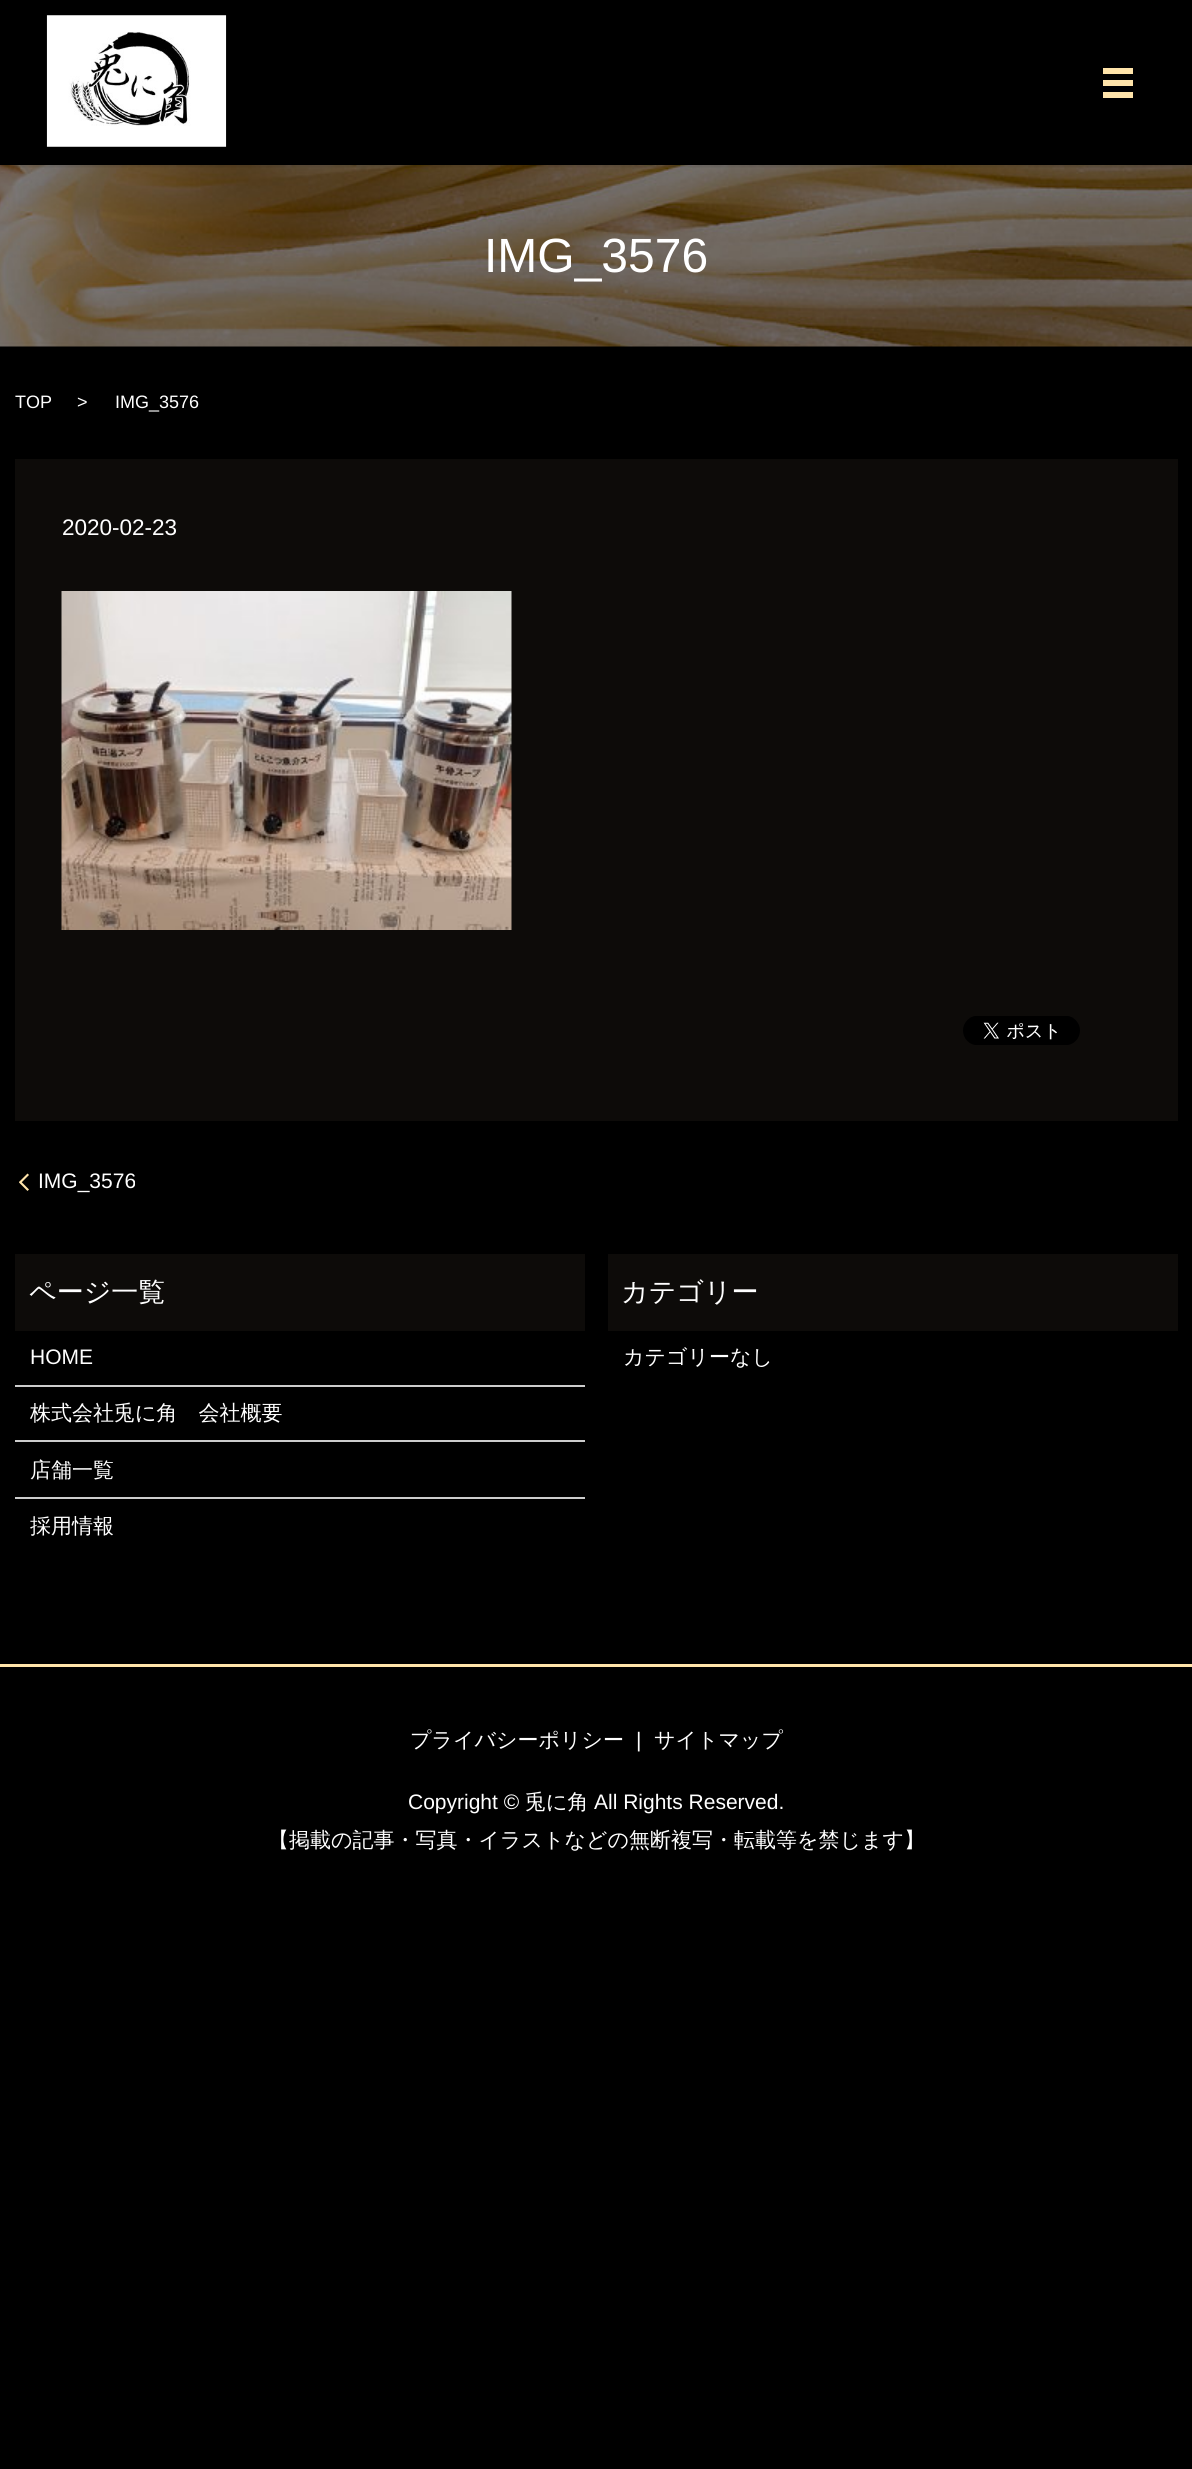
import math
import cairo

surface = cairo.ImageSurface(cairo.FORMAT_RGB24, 1192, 2469)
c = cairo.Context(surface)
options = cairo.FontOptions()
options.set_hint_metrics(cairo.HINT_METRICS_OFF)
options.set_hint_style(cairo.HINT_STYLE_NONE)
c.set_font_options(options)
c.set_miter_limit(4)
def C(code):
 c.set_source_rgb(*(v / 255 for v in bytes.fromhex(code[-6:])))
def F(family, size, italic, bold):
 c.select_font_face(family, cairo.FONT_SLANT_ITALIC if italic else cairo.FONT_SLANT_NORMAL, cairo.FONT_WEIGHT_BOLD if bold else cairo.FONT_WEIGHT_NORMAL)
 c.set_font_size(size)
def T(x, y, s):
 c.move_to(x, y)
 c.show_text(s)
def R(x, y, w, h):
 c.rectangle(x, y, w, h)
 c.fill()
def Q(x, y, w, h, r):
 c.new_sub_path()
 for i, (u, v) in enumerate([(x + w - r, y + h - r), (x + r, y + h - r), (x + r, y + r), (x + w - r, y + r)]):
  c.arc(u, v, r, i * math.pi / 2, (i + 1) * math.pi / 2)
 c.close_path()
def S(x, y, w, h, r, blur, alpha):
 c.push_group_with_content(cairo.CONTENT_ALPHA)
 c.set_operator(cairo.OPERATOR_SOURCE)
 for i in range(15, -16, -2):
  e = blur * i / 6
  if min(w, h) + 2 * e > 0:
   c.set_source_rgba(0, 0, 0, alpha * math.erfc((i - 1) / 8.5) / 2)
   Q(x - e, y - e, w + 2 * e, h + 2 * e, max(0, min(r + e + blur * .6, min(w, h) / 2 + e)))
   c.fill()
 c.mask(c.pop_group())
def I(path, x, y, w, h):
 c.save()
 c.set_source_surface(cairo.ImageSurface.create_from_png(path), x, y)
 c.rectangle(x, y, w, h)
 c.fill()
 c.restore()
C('000000')
c.paint()
I('2.png',0,165,1192,182)
c.save()
c.rectangle(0,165,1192,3)
c.clip()
S(0,2,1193,165,0,1,.1)
c.restore()
I('1.png',46,15,181,132)
C('ffe4aa')
R(1103,68,30,6)
R(1103,80,30,6)
R(1103,92,30,6)
F('Liberation Sans',48,0,0)
C('ffffff')
T(484,272,'IMG_3576')
F('Liberation Sans',18,0,0)
T(15,408,'TOP')
T(77,408,'>')
T(115,408,'IMG_3576')
C('0d0b09')
R(15,459,1163,662)
F('Liberation Sans',22.5,0,0)
C('ffffff')
T(62,535,'2020-02-23')
I('3.png',61,591,451,339)
I('4.png',963,1016,117,29)
C('ffe4aa')
c.new_path()
c.move_to(19,1182)
c.line_to(27.5,1173.5)
c.line_to(29,1175)
c.line_to(20.5,1183.5)
c.close_path()
c.fill()
F('Liberation Sans',21,0,0)
C('ffffff')
T(38,1188,'IMG_3576')
C('ffe4aa')
c.new_path()
c.move_to(27.5,1191)
c.line_to(19,1182.5)
c.line_to(20.5,1181)
c.line_to(29,1189.5)
c.close_path()
c.fill()
C('0d0b09')
R(15,1254,570,77)
F('WenQuanYi Zen Hei Medium',27,0,0)
C('ffffff')
T(29,1301,'ページ一覧')
C('cccccc')
R(15,1385,570,2)
F('Liberation Sans',21,0,0)
C('ffffff')
T(30,1364,'HOME')
C('cccccc')
R(15,1440,570,2)
F('WenQuanYi Zen Hei Medium',21,0,0)
C('ffffff')
T(30,1420,'株式会社兎に角　会社概要')
C('cccccc')
R(15,1497,570,2)
C('ffffff')
T(30,1477,'店舗一覧')
T(30,1533,'採用情報')
C('0d0b09')
R(608,1254,570,77)
F('WenQuanYi Zen Hei Medium',27,0,0)
C('ffffff')
T(621,1301,'カテゴリー')
F('WenQuanYi Zen Hei Medium',21,0,0)
T(623,1364,'カテゴリーなし')
C('ffe4aa')
R(0,1664,1192,3)
C('ffffff')
T(410,1747,'プライバシーポリシー')
F('Liberation Sans',21,0,0)
T(636,1747,'|')
F('WenQuanYi Zen Hei Medium',21,0,0)
T(654,1747,'サイトマップ')
F('Liberation Sans',21,0,0)
T(408,1809,'Copyright ©')
F('WenQuanYi Zen Hei Medium',21,0,0)
T(525,1809,'兎に角')
F('Liberation Sans',21,0,0)
T(594,1809,'All Rights Reserved.')
F('WenQuanYi Zen Hei Medium',21,0,0)
T(268,1847,'【掲載の記事・写真・イラストなどの無断複写・転載等を禁じます】')
surface.write_to_png('o.png')
